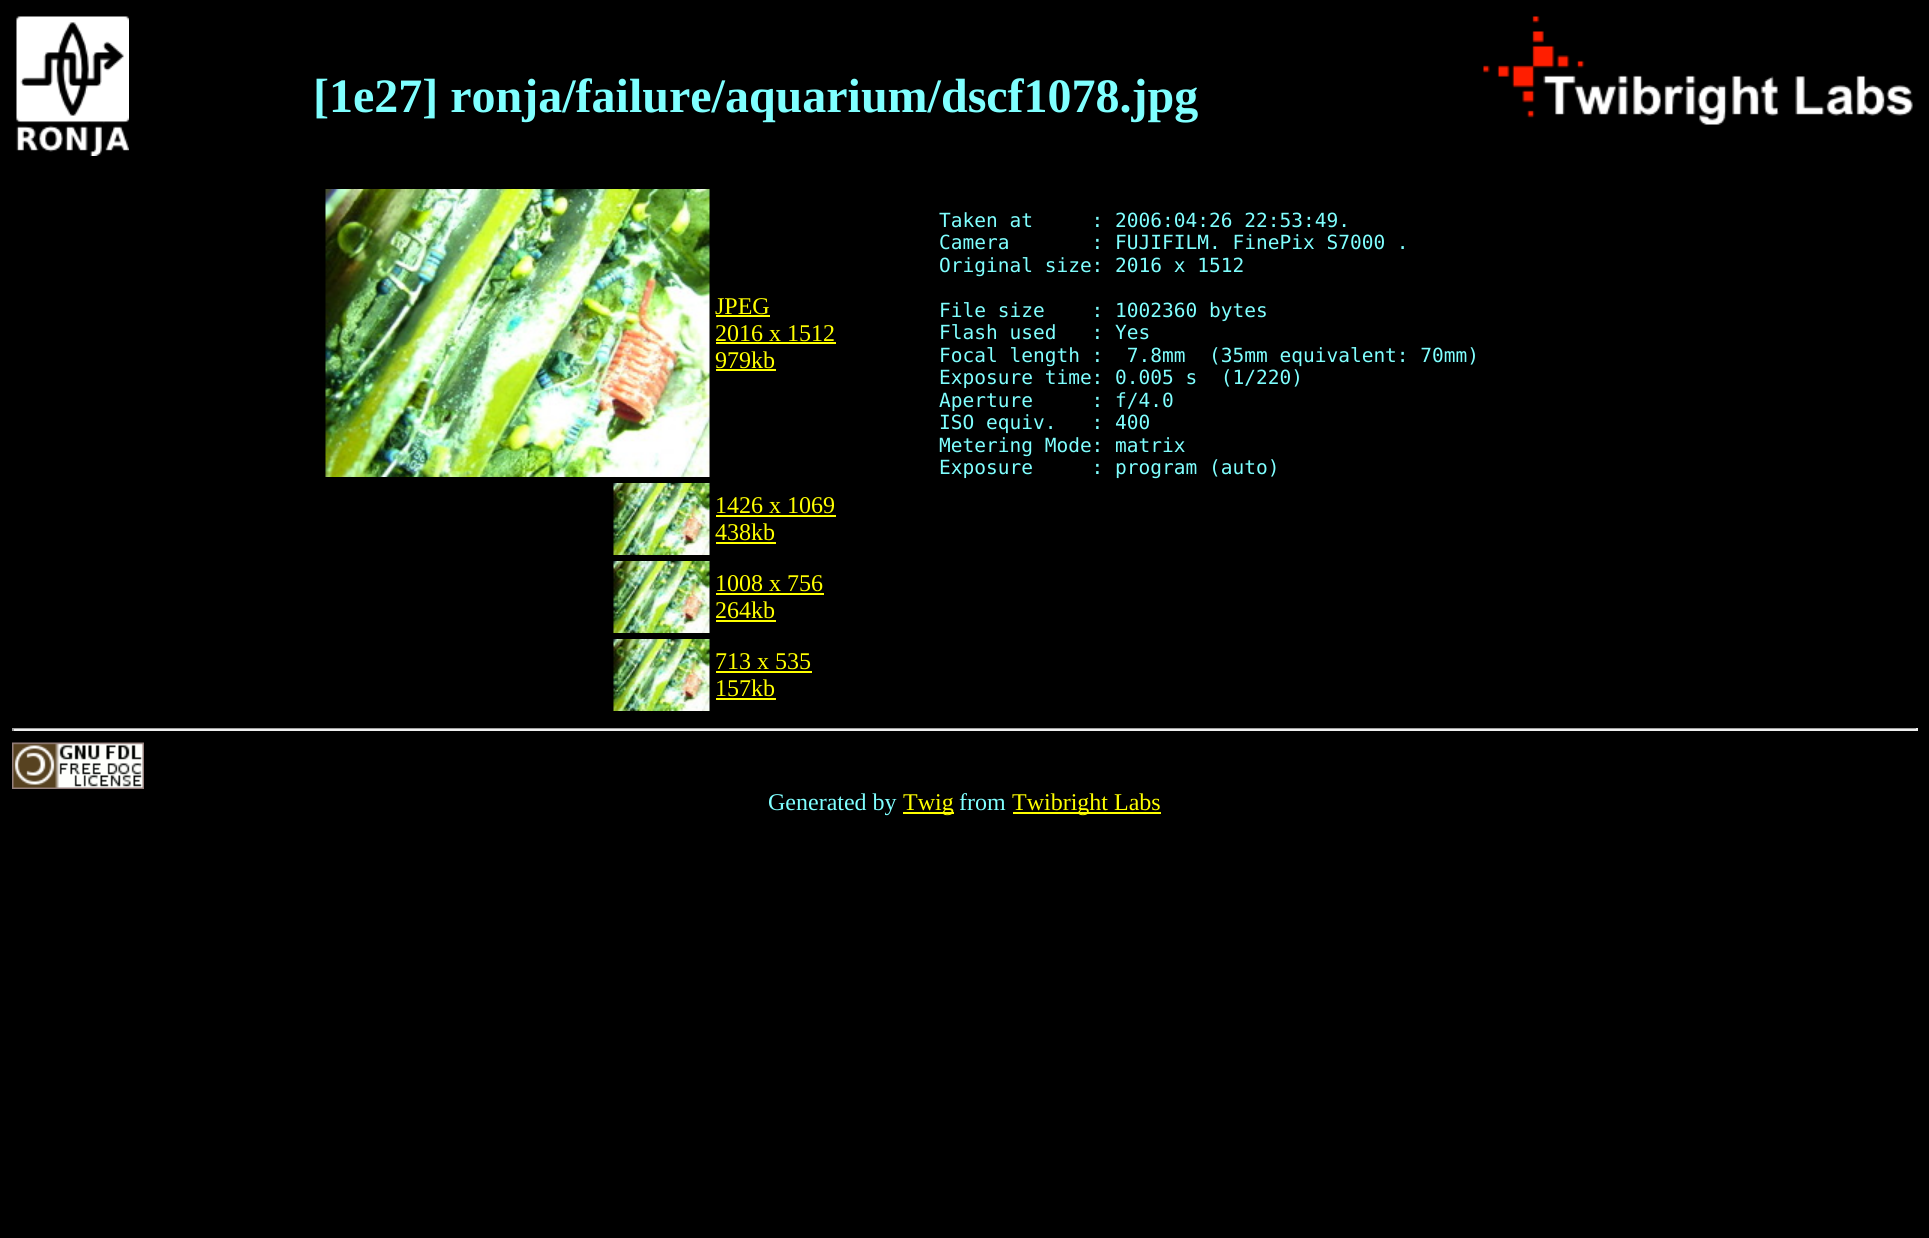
import math
import cairo

surface = cairo.ImageSurface(cairo.FORMAT_RGB24, 1929, 1238)
c = cairo.Context(surface)
options = cairo.FontOptions()
options.set_hint_metrics(cairo.HINT_METRICS_OFF)
options.set_hint_style(cairo.HINT_STYLE_NONE)
c.set_font_options(options)
c.set_miter_limit(4)
def C(code):
 c.set_source_rgb(*(v / 255 for v in bytes.fromhex(code[-6:])))
def F(family, size, italic, bold):
 c.select_font_face(family, cairo.FONT_SLANT_ITALIC if italic else cairo.FONT_SLANT_NORMAL, cairo.FONT_WEIGHT_BOLD if bold else cairo.FONT_WEIGHT_NORMAL)
 c.set_font_size(size)
def T(x, y, s):
 c.move_to(x, y)
 c.show_text(s)
def R(x, y, w, h):
 c.rectangle(x, y, w, h)
 c.fill()
def I(path, x, y, w, h):
 c.save()
 c.set_source_surface(cairo.ImageSurface.create_from_png(path), x, y)
 c.rectangle(x, y, w, h)
 c.fill()
 c.restore()
C('000000')
c.paint()
I('1.png',16,16,113,140)
F('Liberation Serif',48,0,1)
C('7fffff')
T(313,112,'[1e27] ronja/failure/aquarium/dscf1078.jpg')
I('2.png',1483,16,430,109)
I('3.png',325,189,385,288)
F('Liberation Serif',24,0,0)
C('ffff00')
T(715,314,'JPEG')
R(716,315,54,2)
T(715,341,'2016 x 1512')
R(716,342,120,2)
T(715,368,'979kb')
R(716,369,60,2)
F('DejaVu Sans Mono',19.5,0,0)
C('7fffff')
T(939,227,'Taken at     : 2006:04:26 22:53:49.')
T(939,249,'Camera       : FUJIFILM. FinePix S7000 .')
T(939,272,'Original size: 2016 x 1512')
T(939,317,'File size    : 1002360 bytes')
T(939,339,'Flash used   : Yes')
T(939,362,'Focal length :  7.8mm  (35mm equivalent: 70mm)')
T(939,384,'Exposure time: 0.005 s  (1/220)')
T(939,407,'Aperture     : f/4.0')
T(939,429,'ISO equiv.   : 400')
T(939,452,'Metering Mode: matrix')
T(939,474,'Exposure     : program (auto)')
I('4.png',613,483,97,72)
F('Liberation Serif',24,0,0)
C('ffff00')
T(715,513,'1426 x 1069')
R(716,515,120,2)
T(715,540,'438kb')
R(716,542,60,2)
I('4.png',613,561,97,72)
T(715,591,'1008 x 756')
R(716,593,108,2)
T(715,618,'264kb')
R(716,620,60,2)
I('4.png',613,639,97,72)
T(715,669,'713 x 535')
R(716,671,96,2)
T(715,696,'157kb')
R(716,698,60,2)
C('9f9f9f')
R(12,728,1905,1)
C('eeeeee')
R(1916,728,2,3)
R(12,729,1905,2)
C('9f9f9f')
R(12,728,2,3)
I('5.png',12,742,132,47)
C('7fffff')
T(768,810,'Generated by')
C('ffff00')
R(903,812,51,2)
T(903,810,'Twig')
C('7fffff')
T(959,810,'from')
C('ffff00')
R(1013,812,148,2)
T(1012,810,'Twibright Labs')
surface.write_to_png('o.png')
